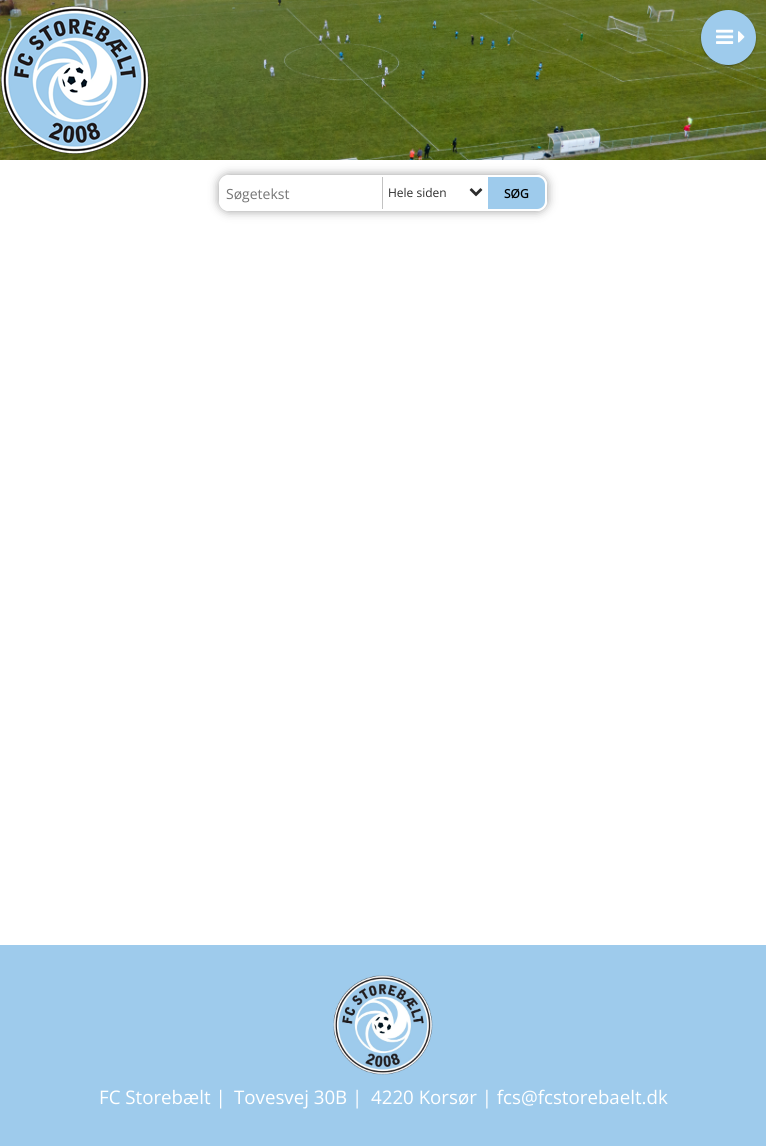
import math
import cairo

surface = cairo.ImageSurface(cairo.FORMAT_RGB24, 766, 1146)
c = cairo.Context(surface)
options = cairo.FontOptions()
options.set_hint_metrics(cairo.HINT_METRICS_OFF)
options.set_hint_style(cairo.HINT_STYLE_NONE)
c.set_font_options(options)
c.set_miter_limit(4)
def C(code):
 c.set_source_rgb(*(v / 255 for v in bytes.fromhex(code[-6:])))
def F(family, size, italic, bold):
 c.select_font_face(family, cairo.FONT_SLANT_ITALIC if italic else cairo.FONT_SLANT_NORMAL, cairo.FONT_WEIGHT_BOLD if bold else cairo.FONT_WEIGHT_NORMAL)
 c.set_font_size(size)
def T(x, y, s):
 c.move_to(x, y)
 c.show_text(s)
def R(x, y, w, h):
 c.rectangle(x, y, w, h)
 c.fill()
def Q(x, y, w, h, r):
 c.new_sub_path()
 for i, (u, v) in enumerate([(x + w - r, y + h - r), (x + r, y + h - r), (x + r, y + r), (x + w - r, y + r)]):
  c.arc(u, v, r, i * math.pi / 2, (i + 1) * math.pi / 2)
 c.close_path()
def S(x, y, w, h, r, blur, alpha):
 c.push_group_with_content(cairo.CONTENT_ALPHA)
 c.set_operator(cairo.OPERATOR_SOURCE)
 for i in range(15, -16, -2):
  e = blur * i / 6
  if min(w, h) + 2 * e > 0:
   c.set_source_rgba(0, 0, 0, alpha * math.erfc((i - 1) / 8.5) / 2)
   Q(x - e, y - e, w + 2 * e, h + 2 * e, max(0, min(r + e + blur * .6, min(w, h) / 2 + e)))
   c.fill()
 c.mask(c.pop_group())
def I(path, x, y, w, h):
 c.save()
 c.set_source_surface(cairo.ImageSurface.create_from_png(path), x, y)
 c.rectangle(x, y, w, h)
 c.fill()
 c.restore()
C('9ecbec')
c.paint()
C('ffffff')
R(0,160,766,785)
c.save()
c.set_fill_rule(cairo.FILL_RULE_EVEN_ODD)
c.new_path()
c.move_to(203,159)
c.line_to(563,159)
c.line_to(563,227)
c.line_to(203,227)
c.close_path()
c.move_to(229,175)
c.line_to(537,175)
c.curve_to(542.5,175,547,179.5,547,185)
c.line_to(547,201)
c.curve_to(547,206.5,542.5,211,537,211)
c.line_to(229,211)
c.curve_to(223.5,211,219,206.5,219,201)
c.line_to(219,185)
c.curve_to(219,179.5,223.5,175,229,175)
c.close_path()
c.clip()
C('303030')
S(219,175,328,36,10,5,.5)
c.restore()
I('1.png',0,0,766,160)
I('2.png',0,5,149,149)
C('000000')
S(701,11,55,55,27.5,1,.24)
S(701,11,55,55,27.5,1.5,.12)
C('9ecbec')
c.arc(728.5,37.5,27.5,0,2 * math.pi)
c.fill()
I('3.png',716,29,18,15)
I('4.png',738,31,7,12)
Q(220,176,326,34,9)
C('ffffff')
c.stroke()
F('Open Sans',14,0,0)
C('757575')
T(226,199,'Søgetekst')
C('c2c2c2')
R(382,177,1,32)
F('Open Sans',12,0,0)
C('2c2c2c')
T(388,197,'Hele siden')
I('5.png',469,188,14,9)
C('9ecbec')
c.new_path()
c.move_to(488,177)
c.line_to(537,177)
c.curve_to(541.5,177,545,180.5,545,185)
c.line_to(545,201)
c.curve_to(545,205.5,541.5,209,537,209)
c.line_to(488,209)
c.close_path()
c.fill()
F('Open Sans',12,0,1)
C('000000')
T(504,198,'SØG')
I('6.png',333,975,100,100)
F('Open Sans',18.7,0,0)
C('ffffff')
T(99,1104,'FC Storebælt |')
T(234,1104,'Tovesvej 30B |')
T(371,1104,'4220 Korsør | fcs@fcstorebaelt.dk')
surface.write_to_png('o.png')
